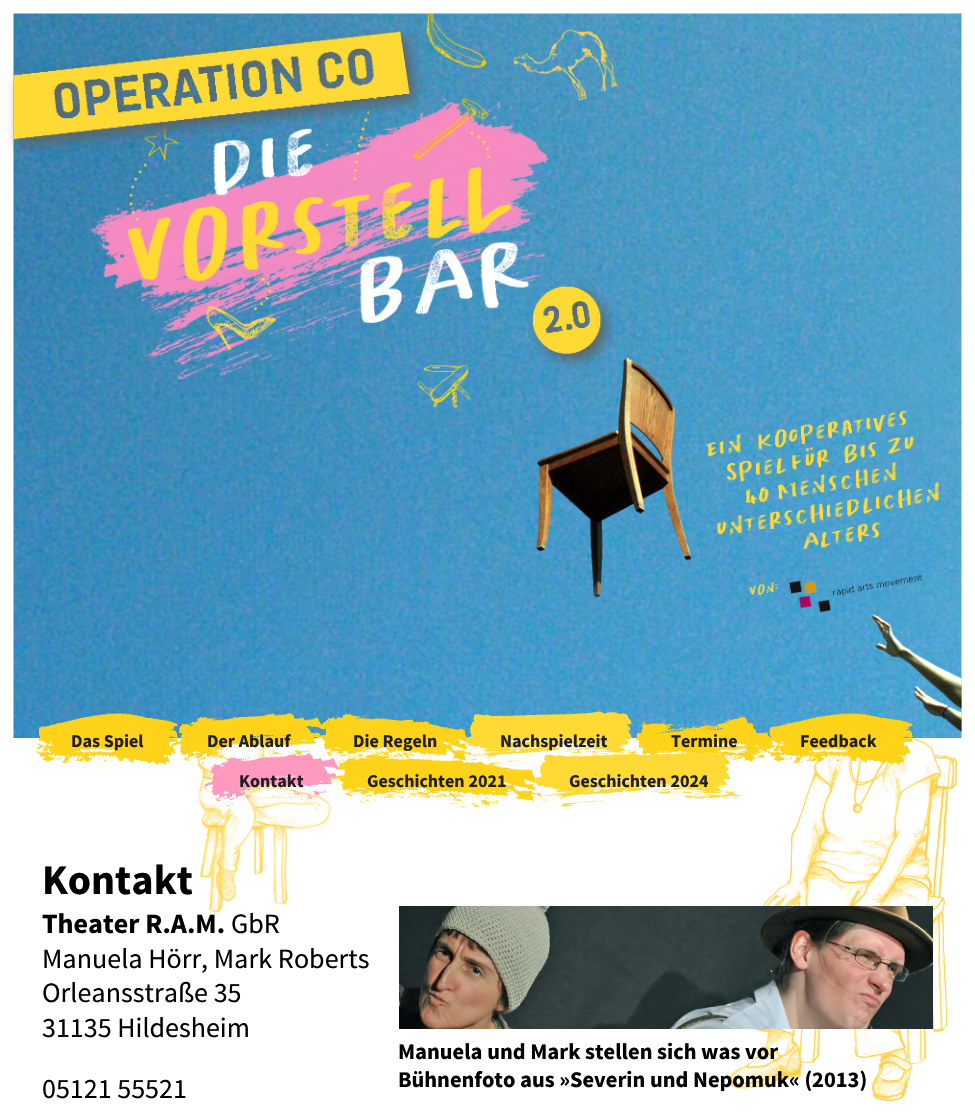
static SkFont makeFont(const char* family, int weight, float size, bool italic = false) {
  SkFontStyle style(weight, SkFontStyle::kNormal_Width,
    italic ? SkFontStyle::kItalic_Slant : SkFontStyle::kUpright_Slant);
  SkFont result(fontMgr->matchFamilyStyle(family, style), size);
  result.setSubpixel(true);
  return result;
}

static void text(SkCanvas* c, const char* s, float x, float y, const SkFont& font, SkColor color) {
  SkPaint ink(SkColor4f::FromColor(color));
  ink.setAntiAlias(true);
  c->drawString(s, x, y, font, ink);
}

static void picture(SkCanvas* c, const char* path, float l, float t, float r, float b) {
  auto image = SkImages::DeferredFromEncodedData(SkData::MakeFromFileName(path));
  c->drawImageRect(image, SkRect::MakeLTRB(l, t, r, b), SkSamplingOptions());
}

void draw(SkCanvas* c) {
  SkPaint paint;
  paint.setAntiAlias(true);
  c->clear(0xffffffff);
  picture(c, "img_01.png", 13, 13, 962, 738);
  picture(c, "img_04.png", 367, 111, 369, 114);
  picture(c, "img_05.png", 364, 118, 368, 122);
  picture(c, "img_06.png", 361, 127, 365, 131);
  picture(c, "img_02.png", 90, 13, 618, 408);
  picture(c, "img_03.png", 8, 28, 425, 154);
  picture(c, "img_07.png", 528, 282, 617, 370);
  picture(c, "img_08.png", 536, 358, 692, 598);
  picture(c, "img_09.png", 706, 410, 939, 550);
  picture(c, "img_10.png", 749, 574, 962, 733);
  picture(c, "img_11.png", 195, 738, 961, 1105);
  picture(c, "img_12.png", 35, 712, 178, 766);
  SkFont face1 = makeFont("Source Sans Pro", 700, 18);
  text(c, "Das Spiel", 71, 747, face1, 0xff202020);
  picture(c, "img_13.png", 171, 712, 326, 767);
  text(c, "Der Ablauf", 207, 747, face1, 0xff202020);
  picture(c, "img_14.png", 317, 713, 472, 763);
  text(c, "Die Regeln", 353, 747, face1, 0xff202020);
  picture(c, "img_15.png", 466, 711, 640, 767);
  text(c, "Nachspielzeit", 500, 747, face1, 0xff202020);
  picture(c, "img_16.png", 636, 714, 773, 762);
  text(c, "Termine", 671, 747, face1, 0xff202020);
  picture(c, "img_17.png", 767, 712, 913, 766);
  text(c, "Feedback", 800, 747, face1, 0xff202020);
  picture(c, "img_18.png", 204, 753, 341, 807);
  text(c, "Kontakt", 239, 787, face1, 0xff202020);
  picture(c, "img_19.png", 332, 753, 543, 808);
  text(c, "Geschichten 2021", 367, 787, face1, 0xff202020);
  picture(c, "img_20.png", 535, 751, 742, 807);
  text(c, "Geschichten 2024", 569, 787, face1, 0xff202020);
  SkFont face2 = makeFont("Source Sans Pro", 700, 42);
  text(c, "Kontakt", 42, 894, face2, 0xff000000);
  SkFont face3 = makeFont("Source Sans Pro", 700, 28);
  text(c, "Theater R.A.M.", 42, 933, face3, 0xff000000);
  SkFont face4 = makeFont("Source Sans Pro", 400, 28);
  text(c, "GbR", 231, 933, face4, 0xff000000);
  text(c, "Manuela Hörr, Mark Roberts", 42, 968, face4, 0xff000000);
  text(c, "Orleansstraße 35", 42, 1002, face4, 0xff000000);
  text(c, "31135 Hildesheim", 42, 1037, face4, 0xff000000);
  text(c, "05121 55521", 42, 1098, face4, 0xff000000);
  picture(c, "img_21.png", 399, 906, 933, 1029);
  SkFont face5 = makeFont("Source Sans Pro", 700, 22.4f);
  text(c, "Manuela und Mark stellen sich was vor", 398, 1059, face5, 0xff000000);
  text(c, "Bühnenfoto aus »Severin und Nepomuk« (2013)", 398, 1087, face5, 0xff000000);
}
